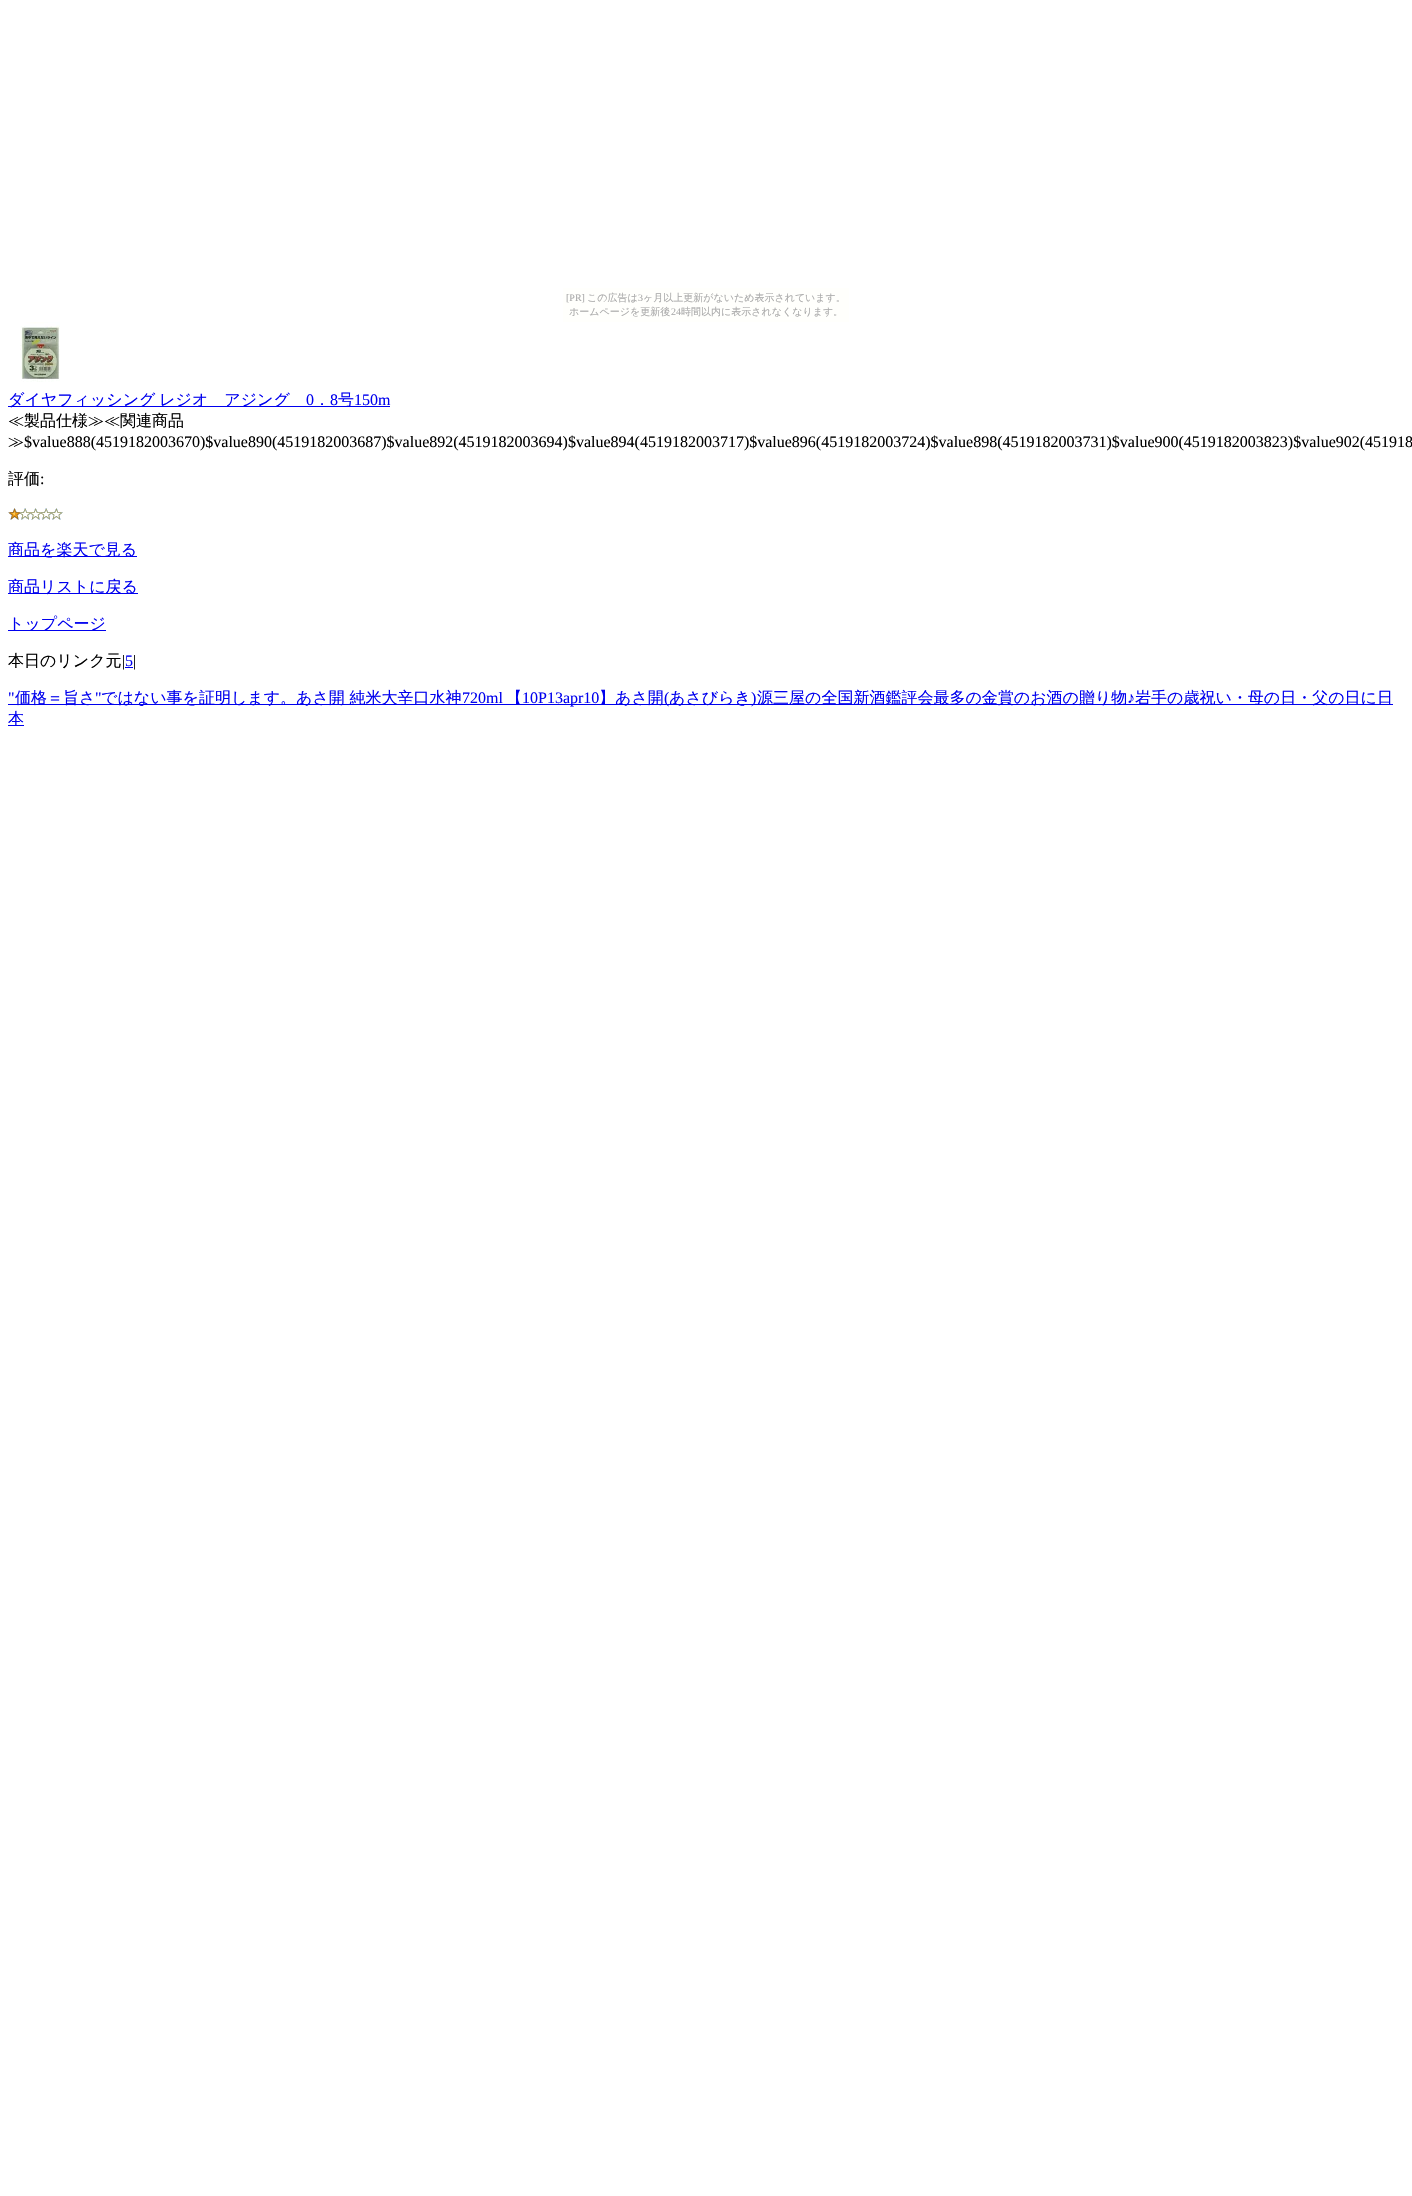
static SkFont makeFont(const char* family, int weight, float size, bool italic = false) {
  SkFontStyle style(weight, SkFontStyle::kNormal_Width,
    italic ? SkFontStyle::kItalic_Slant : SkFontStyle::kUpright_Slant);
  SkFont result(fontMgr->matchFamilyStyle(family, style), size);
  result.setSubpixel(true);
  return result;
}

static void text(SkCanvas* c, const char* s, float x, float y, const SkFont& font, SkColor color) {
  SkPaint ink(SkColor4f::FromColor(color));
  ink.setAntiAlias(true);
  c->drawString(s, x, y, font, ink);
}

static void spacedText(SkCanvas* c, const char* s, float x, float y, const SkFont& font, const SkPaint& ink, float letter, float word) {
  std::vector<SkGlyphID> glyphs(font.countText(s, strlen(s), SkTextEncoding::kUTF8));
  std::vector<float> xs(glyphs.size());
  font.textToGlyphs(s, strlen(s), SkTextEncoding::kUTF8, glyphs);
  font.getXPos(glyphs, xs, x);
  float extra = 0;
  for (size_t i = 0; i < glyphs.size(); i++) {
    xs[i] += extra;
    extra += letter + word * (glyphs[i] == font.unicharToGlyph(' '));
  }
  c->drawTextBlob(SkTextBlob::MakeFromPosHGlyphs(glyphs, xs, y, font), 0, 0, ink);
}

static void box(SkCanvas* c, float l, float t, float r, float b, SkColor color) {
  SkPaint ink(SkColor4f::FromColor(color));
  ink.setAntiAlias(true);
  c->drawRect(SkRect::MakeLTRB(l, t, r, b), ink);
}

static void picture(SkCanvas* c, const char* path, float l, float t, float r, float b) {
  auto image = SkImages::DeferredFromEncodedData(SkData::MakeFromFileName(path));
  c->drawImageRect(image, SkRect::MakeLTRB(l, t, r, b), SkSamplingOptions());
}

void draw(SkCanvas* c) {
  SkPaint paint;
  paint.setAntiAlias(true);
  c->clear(0xffffffff);
  box(c, 563, 288, 849, 322, 0xfffffffc);
  SkFont face1 = makeFont("Liberation Serif", 400, 10);
  text(c, "[PR]", 566, 301, face1, 0xffaaaaaa);
  SkFont face2 = makeFont("WenQuanYi Zen Hei", 500, 10);
  text(c, "この広告は", 587, 301, face2, 0xffaaaaaa);
  text(c, "3", 638, 301, face1, 0xffaaaaaa);
  text(c, "ヶ月以上更新がないため表示されています。", 643, 301, face2, 0xffaaaaaa);
  text(c, "ホームページを更新後", 569, 315, face2, 0xffaaaaaa);
  text(c, "24", 671, 315, face1, 0xffaaaaaa);
  text(c, "時間以内に表示されなくなります。", 681, 315, face2, 0xffaaaaaa);
  picture(c, "img_01.png", 20, 322, 60, 382);
  box(c, 8, 406, 390, 407, 0xff0000ee);
  SkFont face3 = makeFont("WenQuanYi Zen Hei", 500, 16);
  paint.setColor(0xff0000ee);
  spacedText(c, "ダイヤフィッシング レジオ　アジング", 8, 405, face3, paint, 0, -1);
  SkFont face4 = makeFont("Liberation Serif", 400, 16);
  text(c, "0", 306, 405, face4, 0xff0000ee);
  text(c, "．", 314, 405, face3, 0xff0000ee);
  text(c, "8", 330, 405, face4, 0xff0000ee);
  text(c, "号", 338, 405, face3, 0xff0000ee);
  text(c, "150m", 354, 405, face4, 0xff0000ee);
  text(c, "≪製品仕様≫≪関連商品", 8, 426, face3, 0xff000000);
  text(c, "≫", 8, 447, face3, 0xff000000);
  text(c, "$value888(4519182003670)$value890(4519182003687)$value892(4519182003694)$value894(4519182003717)$value896(4519182003724)$value898(4519182003731)$value900(4519182003823)$value902(451918", 24, 447, face4, 0xff000000);
  text(c, "評価", 8, 484, face3, 0xff000000);
  text(c, ":", 40, 484, face4, 0xff000000);
  picture(c, "img_02.png", 8, 508, 63, 520);
  box(c, 8, 556, 137, 557, 0xff0000ee);
  text(c, "商品を楽天で見る", 8, 555, face3, 0xff0000ee);
  box(c, 8, 593, 138, 594, 0xff0000ee);
  text(c, "商品リストに戻る", 8, 592, face3, 0xff0000ee);
  box(c, 8, 630, 106, 631, 0xff0000ee);
  text(c, "トップページ", 8, 629, face3, 0xff0000ee);
  text(c, "本日のリンク元", 8, 666, face3, 0xff000000);
  text(c, "|", 122, 666, face4, 0xff000000);
  text(c, "5", 125, 666, face4, 0xff0000ee);
  box(c, 125, 667, 133, 668, 0xff0000ee);
  text(c, "|", 133, 666, face4, 0xff000000);
  text(c, "\"", 8, 703, face4, 0xff0000ee);
  box(c, 8, 704, 1393, 705, 0xff0000ee);
  text(c, "価格＝旨さ", 15, 703, face3, 0xff0000ee);
  text(c, "\"", 95, 703, face4, 0xff0000ee);
  text(c, "ではない事を証明します。あさ開 純米大辛口水神", 101, 703, face3, 0xff0000ee);
  text(c, "720ml", 462, 703, face4, 0xff0000ee);
  text(c, "【", 506, 703, face3, 0xff0000ee);
  text(c, "10P13apr10", 522, 703, face4, 0xff0000ee);
  text(c, "】あさ開", 599, 703, face3, 0xff0000ee);
  text(c, "(", 664, 703, face4, 0xff0000ee);
  text(c, "あさびらき", 669, 703, face3, 0xff0000ee);
  text(c, ")", 751, 703, face4, 0xff0000ee);
  text(c, "源三屋の全国新酒鑑評会最多の金賞のお酒の贈り物", 757, 703, face3, 0xff0000ee);
  text(c, "♪", 1127, 703, face4, 0xff0000ee);
  text(c, "岩手の歳祝い・母の日・父の日に日", 1135, 703, face3, 0xff0000ee);
  box(c, 8, 725, 24, 726, 0xff0000ee);
  text(c, "本", 8, 724, face3, 0xff0000ee);
}
